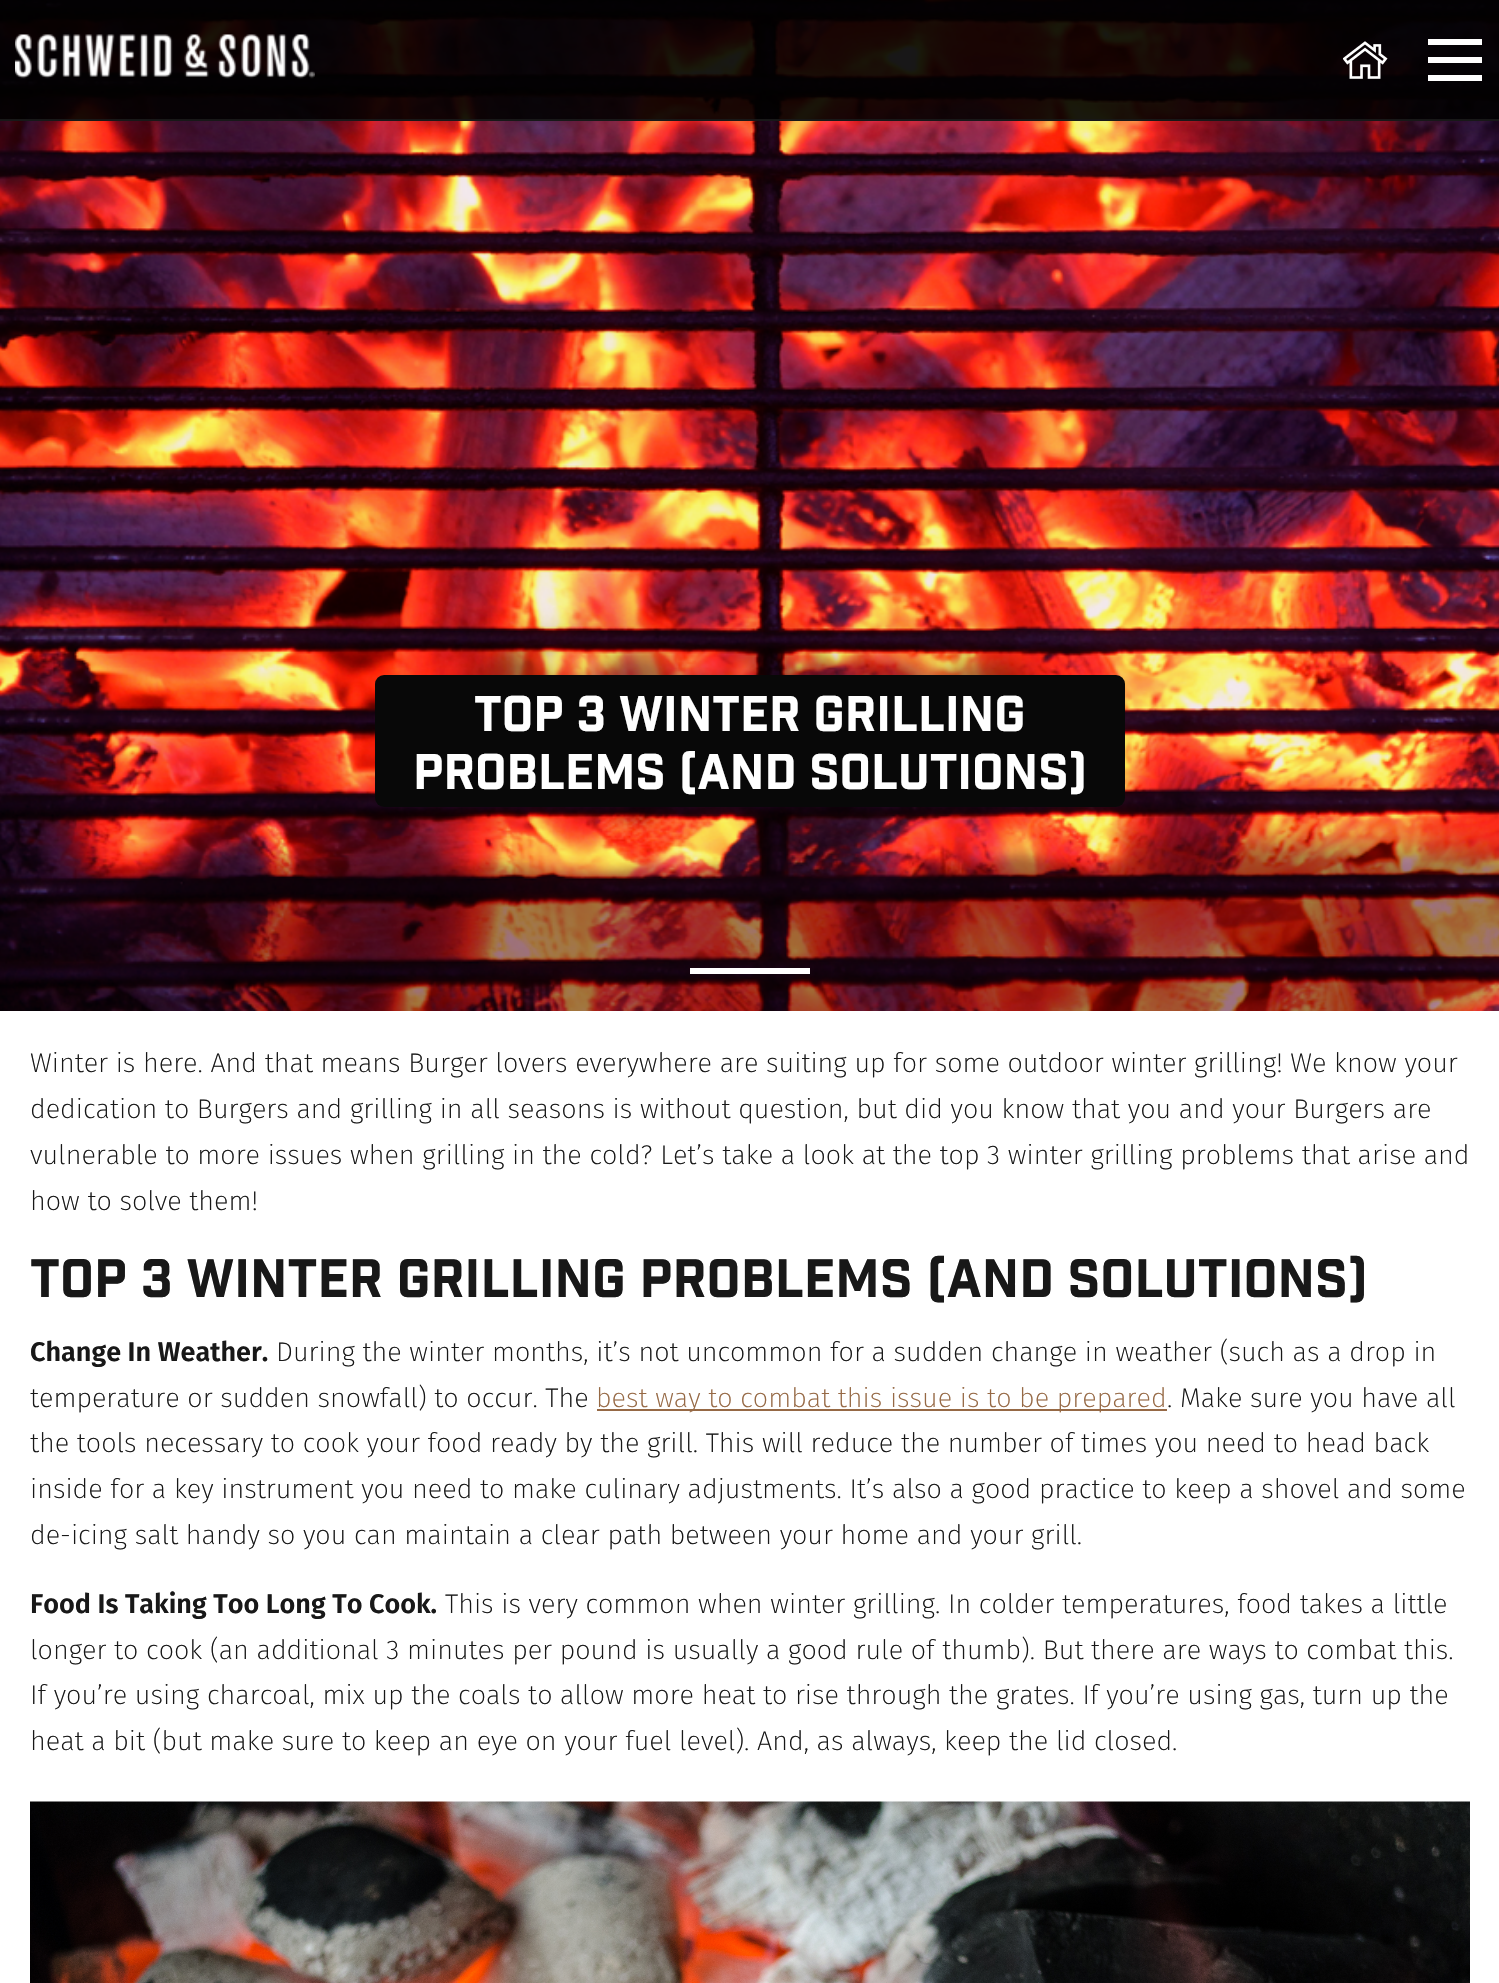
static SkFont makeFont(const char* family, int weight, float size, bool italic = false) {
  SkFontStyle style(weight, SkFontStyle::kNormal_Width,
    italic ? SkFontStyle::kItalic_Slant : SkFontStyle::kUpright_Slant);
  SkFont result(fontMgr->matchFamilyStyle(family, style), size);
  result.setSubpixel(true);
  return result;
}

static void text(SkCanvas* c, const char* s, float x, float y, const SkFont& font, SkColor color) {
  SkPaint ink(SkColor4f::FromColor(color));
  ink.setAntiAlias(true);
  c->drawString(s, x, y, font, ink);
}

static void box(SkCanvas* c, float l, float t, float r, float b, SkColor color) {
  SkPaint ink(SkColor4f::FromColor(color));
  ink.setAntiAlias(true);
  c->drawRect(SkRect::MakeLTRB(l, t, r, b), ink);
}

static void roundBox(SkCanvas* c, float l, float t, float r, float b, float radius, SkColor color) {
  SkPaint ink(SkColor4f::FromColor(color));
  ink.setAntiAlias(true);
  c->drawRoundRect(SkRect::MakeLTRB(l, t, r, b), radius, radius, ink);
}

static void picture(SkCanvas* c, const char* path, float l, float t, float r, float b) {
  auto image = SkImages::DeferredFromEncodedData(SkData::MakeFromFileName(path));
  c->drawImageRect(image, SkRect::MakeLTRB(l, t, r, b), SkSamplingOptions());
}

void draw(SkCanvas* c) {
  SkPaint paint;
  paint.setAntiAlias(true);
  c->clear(0xffffffff);
  picture(c, "img_03.png", 0, 0, 1499, 1011);
  box(c, 0, 0, 1499, 119, 0xe6000000);
  box(c, 0, 119, 1499, 121, 0xff181818);
  picture(c, "img_01.png", 15, 34, 315, 79);
  picture(c, "img_02.png", 1343, 41, 1388, 79);
  box(c, 1428, 39, 1482, 45, 0xffffffff);
  box(c, 1428, 57, 1482, 63, 0xffffffff);
  box(c, 1428, 75, 1482, 81, 0xffffffff);
  roundBox(c, 375, 675, 1125, 807, 9, 0xff080808);
  SkFont face1 = makeFont("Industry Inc", 400, 48.6f);
  text(c, "TOP 3 WINTER GRILLING", 474, 731, face1, 0xffffffff);
  text(c, "PROBLEMS (AND SOLUTIONS)", 413, 789, face1, 0xffffffff);
  box(c, 690, 968, 810, 974, 0xffffffff);
  SkFont face2 = makeFont("Fira Sans", 200, 27);
  text(c, "Winter is here. And that means Burger lovers everywhere are suiting up for some outdoor winter grilling! We know your", 30, 1072, face2, 0xff181818);
  text(c, "dedication to Burgers and grilling in all seasons is without question, but did you know that you and your Burgers are", 30, 1118, face2, 0xff181818);
  text(c, "vulnerable to more issues when grilling in the cold? Let’s take a look at the top 3 winter grilling problems that arise and", 30, 1164, face2, 0xff181818);
  text(c, "how to solve them!", 30, 1210, face2, 0xff181818);
  SkFont face3 = makeFont("Industry Inc", 400, 52.5f);
  text(c, "TOP 3 WINTER GRILLING PROBLEMS (AND SOLUTIONS)", 30, 1297, face3, 0xff181818);
  SkFont face4 = makeFont("Fira Sans", 600, 27);
  text(c, "Change In Weather.", 30, 1361, face4, 0xff181818);
  text(c, "During the winter months, it’s not uncommon for a sudden change in weather (such as a drop in", 276, 1361, face2, 0xff181818);
  text(c, "temperature or sudden snowfall) to occur. The", 30, 1407, face2, 0xff181818);
  box(c, 597, 1409, 1167, 1411, 0xff966945);
  text(c, "best way to combat this issue is to be prepared", 596, 1407, face2, 0xff966945);
  text(c, ". Make sure you have all", 1167, 1407, face2, 0xff181818);
  text(c, "the tools necessary to cook your food ready by the grill. This will reduce the number of times you need to head back", 30, 1452, face2, 0xff181818);
  text(c, "inside for a key instrument you need to make culinary adjustments. It’s also a good practice to keep a shovel and some", 30, 1498, face2, 0xff181818);
  text(c, "de-icing salt handy so you can maintain a clear path between your home and your grill.", 30, 1544, face2, 0xff181818);
  text(c, "Food Is Taking Too Long To Cook.", 30, 1613, face4, 0xff181818);
  text(c, "This is very common when winter grilling. In colder temperatures, food takes a little", 445, 1613, face2, 0xff181818);
  text(c, "longer to cook (an additional 3 minutes per pound is usually a good rule of thumb). But there are ways to combat this.", 30, 1659, face2, 0xff181818);
  text(c, "If you’re using charcoal, mix up the coals to allow more heat to rise through the grates. If you’re using gas, turn up the", 30, 1704, face2, 0xff181818);
  text(c, "heat a bit (but make sure to keep an eye on your fuel level). And, as always, keep the lid closed.", 30, 1750, face2, 0xff181818);
  picture(c, "img_04.png", 30, 1801, 1470, 1983);
}
